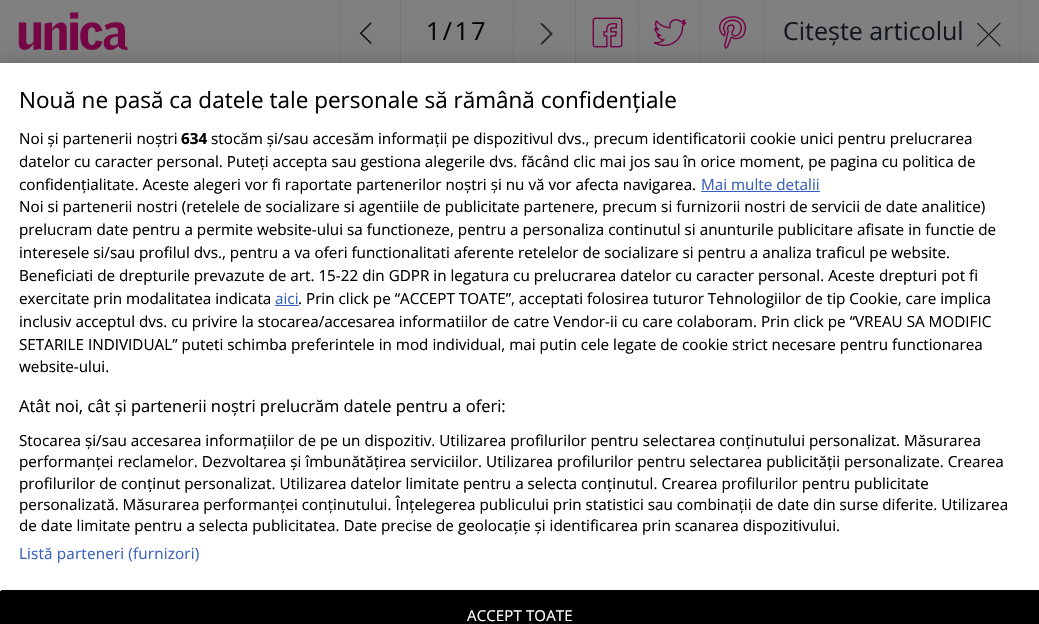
static SkFont makeFont(const char* family, int weight, float size, bool italic = false) {
  SkFontStyle style(weight, SkFontStyle::kNormal_Width,
    italic ? SkFontStyle::kItalic_Slant : SkFontStyle::kUpright_Slant);
  SkFont result(fontMgr->matchFamilyStyle(family, style), size);
  result.setSubpixel(true);
  return result;
}

static void text(SkCanvas* c, const char* s, float x, float y, const SkFont& font, SkColor color) {
  SkPaint ink(SkColor4f::FromColor(color));
  ink.setAntiAlias(true);
  c->drawString(s, x, y, font, ink);
}

static void spacedText(SkCanvas* c, const char* s, float x, float y, const SkFont& font, const SkPaint& ink, float letter, float word) {
  std::vector<SkGlyphID> glyphs(font.countText(s, strlen(s), SkTextEncoding::kUTF8));
  std::vector<float> xs(glyphs.size());
  font.textToGlyphs(s, strlen(s), SkTextEncoding::kUTF8, glyphs);
  font.getXPos(glyphs, xs, x);
  float extra = 0;
  for (size_t i = 0; i < glyphs.size(); i++) {
    xs[i] += extra;
    extra += letter + word * (glyphs[i] == font.unicharToGlyph(' '));
  }
  c->drawTextBlob(SkTextBlob::MakeFromPosHGlyphs(glyphs, xs, y, font), 0, 0, ink);
}

static void box(SkCanvas* c, float l, float t, float r, float b, SkColor color) {
  SkPaint ink(SkColor4f::FromColor(color));
  ink.setAntiAlias(true);
  c->drawRect(SkRect::MakeLTRB(l, t, r, b), ink);
}

static void picture(SkCanvas* c, const char* path, float l, float t, float r, float b) {
  auto image = SkImages::DeferredFromEncodedData(SkData::MakeFromFileName(path));
  c->drawImageRect(image, SkRect::MakeLTRB(l, t, r, b), SkSamplingOptions());
}

void draw(SkCanvas* c) {
  SkPaint paint;
  paint.setAntiAlias(true);
  c->clear(0xff808080);
  picture(c, "img_01.png", 18, 12, 128, 50);
  box(c, 400, 0, 401, 63, 0xff777777);
  box(c, 339, 0, 340, 63, 0xff777777);
  picture(c, "img_02.png", 359, 22, 372, 44);
  SkFont face1 = makeFont("Open Sans", 400, 25);
  paint.setColor(0xff000000);
  spacedText(c, "1/17", 426, 40, face1, paint, 2.5f, 0);
  box(c, 513, 0, 514, 63, 0xff777777);
  picture(c, "img_03.png", 540, 22, 553, 45);
  box(c, 575, 0, 576, 63, 0xff777777);
  picture(c, "img_04.png", 592, 17, 623, 48);
  box(c, 638, 0, 639, 63, 0xff777777);
  picture(c, "img_05.png", 654, 18, 686, 47);
  box(c, 700, 0, 701, 63, 0xff777777);
  picture(c, "img_06.png", 718, 16, 747, 49);
  box(c, 1020, 0, 1021, 63, 0xff777777);
  box(c, 763, 0, 764, 63, 0xff777777);
  text(c, "Citește articolul", 783, 40, face1, 0xff13161d);
  picture(c, "img_07.png", 977, 23, 1001, 47);
  paint.setColor(0x33000000);
  paint.setMaskFilter(SkMaskFilter::MakeBlur(kNormal_SkBlurStyle, 11));
  c->drawRect(SkRect::MakeLTRB(0, 63, 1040, 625), paint);
  paint.setMaskFilter(nullptr);
  box(c, 0, 63, 1039, 593, 0xffffffff);
  SkFont face2 = makeFont("Open Sans", 400, 22.5f);
  text(c, "Nouă ne pasă ca datele tale personale să rămână confidențiale", 19, 108, face2, 0xff000000);
  SkFont face3 = makeFont("Open Sans", 400, 15.25f);
  text(c, "Noi și partenerii noștri", 19, 144, face3, 0xff000000);
  SkFont face4 = makeFont("Open Sans", 700, 15.25f);
  text(c, "634", 181, 144, face4, 0xff000000);
  text(c, "stocăm și/sau accesăm informații pe dispozitivul dvs., precum identificatorii cookie unici pentru prelucrarea", 211, 144, face3, 0xff000000);
  text(c, "datelor cu caracter personal. Puteți accepta sau gestiona alegerile dvs. făcând clic mai jos sau în orice moment, pe pagina cu politica de", 19, 167, face3, 0xff000000);
  text(c, "confidențialitate. Aceste alegeri vor fi raportate partenerilor noștri și nu vă vor afecta navigarea.", 19, 190, face3, 0xff000000);
  text(c, "Mai multe detalii", 701, 190, face3, 0xff3860be);
  box(c, 701, 191, 820, 192, 0xff3860be);
  text(c, "Noi si partenerii nostri (retelele de socializare si agentiile de publicitate partenere, precum si furnizorii nostri de servicii de date analitice)", 19, 212, face3, 0xff000000);
  text(c, "prelucram date pentru a permite website-ului sa functioneze, pentru a personaliza continutul si anunturile publicitare afisate in functie de", 19, 235, face3, 0xff000000);
  text(c, "interesele si/sau profilul dvs., pentru a va oferi functionalitati aferente retelelor de socializare si pentru a analiza traficul pe website.", 19, 258, face3, 0xff000000);
  text(c, "Beneficiati de drepturile prevazute de art. 15-22 din GDPR in legatura cu prelucrarea datelor cu caracter personal. Aceste drepturi pot fi", 19, 281, face3, 0xff000000);
  text(c, "exercitate prin modalitatea indicata", 19, 304, face3, 0xff000000);
  text(c, "aici", 275, 304, face3, 0xff3860be);
  box(c, 275, 305, 299, 306, 0xff3860be);
  text(c, ". Prin click pe “ACCEPT TOATE”, acceptati folosirea tuturor Tehnologiilor de tip Cookie, care implica", 298, 304, face3, 0xff000000);
  text(c, "inclusiv acceptul dvs. cu privire la stocarea/accesarea informatiilor de catre Vendor-ii cu care colaboram. Prin click pe “VREAU SA MODIFIC", 19, 327, face3, 0xff000000);
  text(c, "SETARILE INDIVIDUAL” puteti schimba preferintele in mod individual, mai putin cele legate de cookie strict necesare pentru functionarea", 19, 350, face3, 0xff000000);
  text(c, "website-ului.", 19, 372, face3, 0xff000000);
  SkFont face5 = makeFont("Open Sans", 400, 16.5f);
  text(c, "Atât noi, cât și partenerii noștri prelucrăm datele pentru a oferi:", 19, 412, face5, 0xff000000);
  text(c, "Stocarea și/sau accesarea informațiilor de pe un dispozitiv. Utilizarea profilurilor pentru selectarea conținutului personalizat. Măsurarea", 19, 446, face3, 0xff000000);
  text(c, "performanței reclamelor. Dezvoltarea și îmbunătățirea serviciilor. Utilizarea profilurilor pentru selectarea publicității personalizate. Crearea", 19, 467, face3, 0xff000000);
  text(c, "profilurilor de conținut personalizat. Utilizarea datelor limitate pentru a selecta conținutul. Crearea profilurilor pentru publicitate", 19, 489, face3, 0xff000000);
  text(c, "personalizată. Măsurarea performanței conținutului. Înțelegerea publicului prin statistici sau combinații de date din surse diferite. Utilizarea", 19, 510, face3, 0xff000000);
  text(c, "de date limitate pentru a selecta publicitatea. Date precise de geolocație și identificarea prin scanarea dispozitivului.", 19, 531, face3, 0xff000000);
  paint.setColor(0xff3860be);
  spacedText(c, "Listă parteneri (furnizori)", 19, 559, face3, paint, 0.15f, 0);
  paint.setColor(0xff000000);
  c->drawPath(SkPathBuilder().moveTo(2.5f, 590).lineTo(1037.5f, 590).cubicTo(1039, 590, 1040, 591, 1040, 592.5f).lineTo(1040, 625).lineTo(0, 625).lineTo(0, 592.5f).cubicTo(0, 591, 1, 590, 2.5f, 590).close().detach(), paint);
  paint.setStyle(SkPaint::kStroke_Style);
  paint.setStrokeWidth(1);
  c->drawRoundRect(SkRect::MakeLTRB(0.5f, 590.5f, 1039.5f, 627.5f), 2, 2, paint);
  SkFont face6 = makeFont("Open Sans", 400, 15);
  paint.setStyle(SkPaint::kFill_Style);
  paint.setColor(0xffffffff);
  spacedText(c, "ACCEPT TOATE", 467, 621, face6, paint, 0.15f, 0);
}
